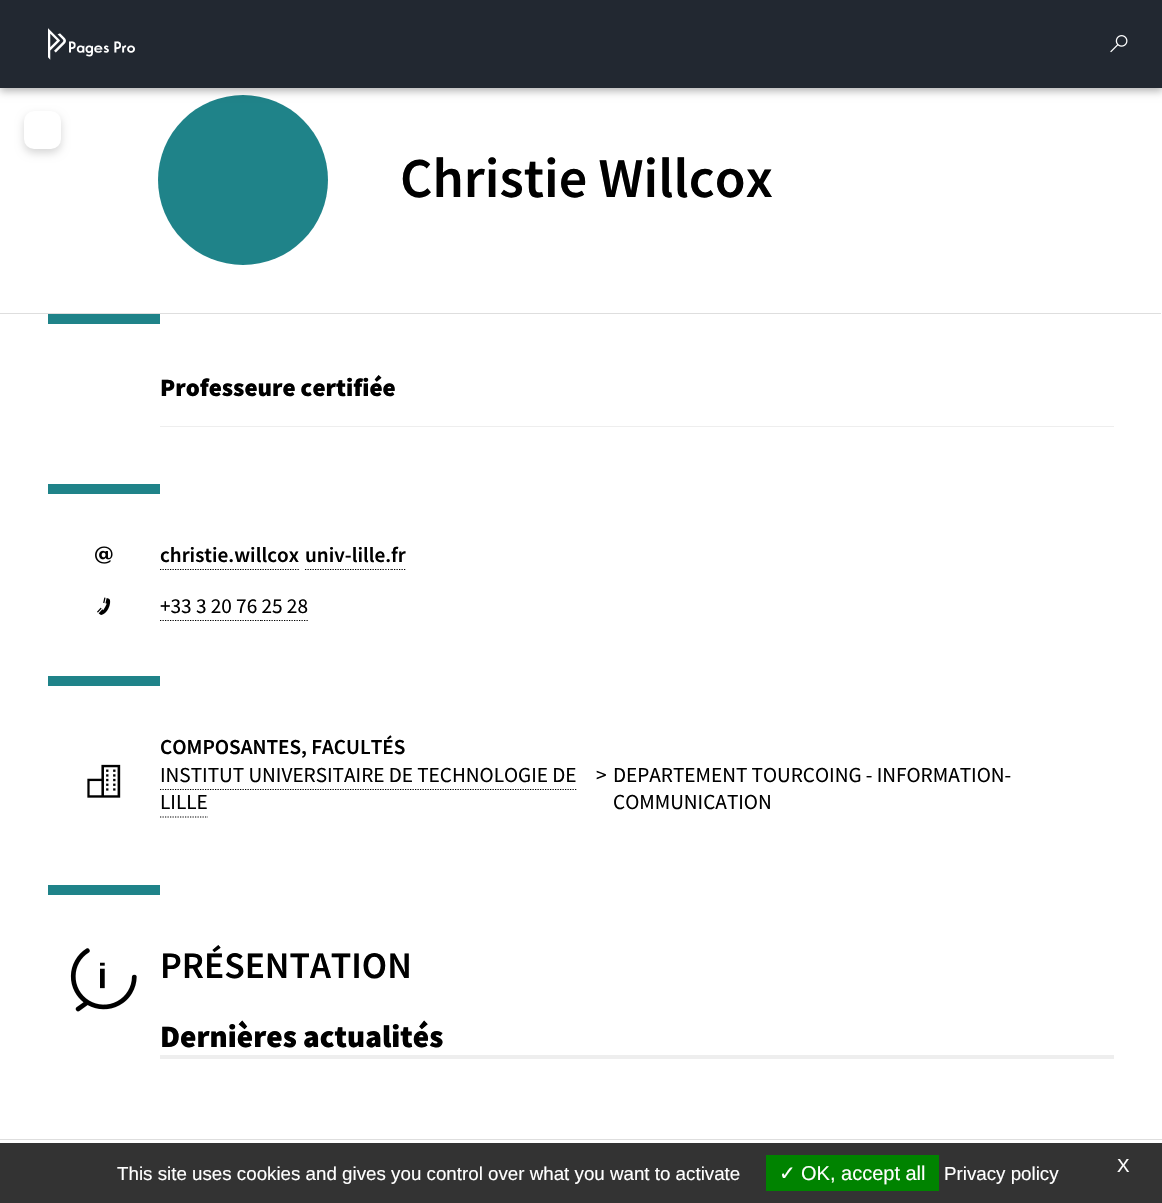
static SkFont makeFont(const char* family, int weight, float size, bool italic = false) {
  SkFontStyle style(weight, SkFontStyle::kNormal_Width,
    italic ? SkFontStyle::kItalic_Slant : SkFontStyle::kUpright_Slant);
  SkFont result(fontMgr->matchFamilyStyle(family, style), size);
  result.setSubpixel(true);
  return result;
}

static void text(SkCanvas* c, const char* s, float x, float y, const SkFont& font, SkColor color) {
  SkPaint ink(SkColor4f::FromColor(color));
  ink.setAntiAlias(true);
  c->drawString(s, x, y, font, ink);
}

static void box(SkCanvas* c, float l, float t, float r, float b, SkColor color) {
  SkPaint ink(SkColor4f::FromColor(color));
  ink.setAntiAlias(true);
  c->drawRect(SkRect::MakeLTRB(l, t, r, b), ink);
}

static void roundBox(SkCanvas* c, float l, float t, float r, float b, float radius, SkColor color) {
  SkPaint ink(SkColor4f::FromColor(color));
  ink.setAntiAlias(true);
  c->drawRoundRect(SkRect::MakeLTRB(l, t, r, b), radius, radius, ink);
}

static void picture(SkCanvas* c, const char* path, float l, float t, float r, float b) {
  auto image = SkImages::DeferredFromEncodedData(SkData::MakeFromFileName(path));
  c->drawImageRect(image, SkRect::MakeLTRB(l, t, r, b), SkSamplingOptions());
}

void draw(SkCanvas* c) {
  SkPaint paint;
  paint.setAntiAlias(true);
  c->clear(0xffffffff);
  paint.setColor(0xff1f8389);
  c->drawCircle(243, 180, 85, paint);
  paint.setColor(0x4d000000);
  paint.setMaskFilter(SkMaskFilter::MakeBlur(kNormal_SkBlurStyle, 4));
  c->drawRect(SkRect::MakeLTRB(0, 4, 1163, 91), paint);
  paint.setMaskFilter(nullptr);
  box(c, 0, 0, 1162, 88, 0xff222831);
  picture(c, "img_01.png", 48, 28, 135, 60);
  picture(c, "img_02.png", 1110, 35, 1128, 53);
  paint.setColor(0x29000000);
  paint.setMaskFilter(SkMaskFilter::MakeBlur(kNormal_SkBlurStyle, 4));
  c->drawRoundRect(SkRect::MakeLTRB(24, 115, 61, 153), 10, 10, paint);
  paint.setMaskFilter(nullptr);
  roundBox(c, 24, 111, 61, 149, 10, 0xffffffff);
  box(c, 0, 313, 1161, 314, 0xffdedede);
  SkFont face1 = makeFont("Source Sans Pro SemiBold", 600, 56.25f);
  text(c, "Christie Willcox", 400, 197, face1, 0xff000000);
  box(c, 48, 314, 160, 324, 0xff1f8389);
  SkFont face2 = makeFont("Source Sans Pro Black", 900, 25);
  text(c, "Professeure certifiée", 160, 396, face2, 0xff000000);
  box(c, 160, 426, 1114, 427, 0xffeeeeee);
  box(c, 48, 484, 160, 494, 0xff1f8389);
  picture(c, "img_03.png", 95, 546, 113, 564);
  SkFont face3 = makeFont("Source Sans Pro SemiBold", 600, 21.25f);
  text(c, "christie.willcox", 160, 562, face3, 0xff000000);
  paint.setStyle(SkPaint::kStroke_Style);
  paint.setStrokeWidth(1.2f);
  paint.setColor(0xff000000);
  paint.setPathEffect(SkDashPathEffect::Make({{1.25f, 1.25f}}, 0));
  c->drawPath(SkPathBuilder().moveTo(160, 569.5f).lineTo(299, 569.5f).detach(), paint);
  paint.setPathEffect(nullptr);
  text(c, "univ-lille.fr", 305, 562, face3, 0xff000000);
  paint.setPathEffect(SkDashPathEffect::Make({{1.25f, 1.25f}}, 0));
  c->drawPath(SkPathBuilder().moveTo(305, 569.5f).lineTo(385.5f, 569.5f).detach(), paint);
  paint.setPathEffect(nullptr);
  c->drawPath(SkPathBuilder().moveTo(385.5f, 569.5f).lineTo(386.5f, 569.5f).moveTo(388, 569.5f).lineTo(389, 569.5f).moveTo(390.5f, 569.5f).lineTo(391.5f, 569.5f).detach(), paint);
  paint.setPathEffect(SkDashPathEffect::Make({{1.25f, 1.25f}}, 0));
  c->drawPath(SkPathBuilder().moveTo(391.5f, 569.5f).lineTo(406, 569.5f).detach(), paint);
  paint.setPathEffect(nullptr);
  picture(c, "img_04.png", 97, 597, 111, 615);
  SkFont face4 = makeFont("Source Sans Pro", 400, 21.25f);
  text(c, "+33 3 20 76 25 28", 160, 613, face4, 0xff000000);
  paint.setPathEffect(SkDashPathEffect::Make({{1.25f, 1.25f}}, 0));
  c->drawPath(SkPathBuilder().moveTo(160, 620.5f).lineTo(261.5f, 620.5f).detach(), paint);
  paint.setPathEffect(nullptr);
  paint.setPathEffect(SkDashPathEffect::Make({{1.25f, 1.25f}}, 0));
  c->drawPath(SkPathBuilder().moveTo(261.5f, 620.5f).lineTo(308, 620.5f).detach(), paint);
  paint.setPathEffect(nullptr);
  box(c, 48, 676, 160, 686, 0xff1f8389);
  picture(c, "img_05.png", 87, 764, 121, 798);
  text(c, "COMPOSANTES, FACULTÉS", 160, 754, face3, 0xff000000);
  text(c, "INSTITUT UNIVERSITAIRE DE TECHNOLOGIE DE", 160, 782, face4, 0xff000000);
  text(c, "LILLE", 160, 809, face4, 0xff000000);
  paint.setPathEffect(SkDashPathEffect::Make({{1.25f, 1.25f}}, 0));
  c->drawPath(SkPathBuilder().moveTo(160, 789.5f).lineTo(576.5f, 789.5f).detach(), paint);
  paint.setPathEffect(nullptr);
  paint.setPathEffect(SkDashPathEffect::Make({{1.25f, 1.25f}}, 0));
  c->drawPath(SkPathBuilder().moveTo(160, 817).lineTo(208, 817).detach(), paint);
  paint.setPathEffect(nullptr);
  text(c, ">", 596, 782, face4, 0xff000000);
  text(c, "DEPARTEMENT TOURCOING - INFORMATION-", 613, 782, face4, 0xff000000);
  text(c, "COMMUNICATION", 613, 809, face4, 0xff000000);
  box(c, 48, 885, 160, 895, 0xff1f8389);
  picture(c, "img_06.png", 70, 948, 137, 1012);
  SkFont face5 = makeFont("Source Sans Pro SemiBold", 600, 37.5f);
  text(c, "PRÉSENTATION", 160, 978, face5, 0xff000000);
  box(c, 160, 1055, 1114, 1059, 0xffeeeeee);
  SkFont face6 = makeFont("Source Sans Pro Black", 900, 31.25f);
  text(c, "Dernières actualités", 160, 1047, face6, 0xff000000);
  box(c, 0, 1139, 1162, 1140, 0xffdedede);
  box(c, 0, 1143, 1162, 1203, 0xff333333);
  SkFont face7 = makeFont("Liberation Sans", 400, 18.75f);
  text(c, "This site uses cookies and gives you control over what you want to activate", 117, 1180, face7, 0xffffffff);
  box(c, 766, 1155, 939, 1191, 0xff008300);
  SkFont face8 = makeFont("DejaVu Sans", 400, 20);
  text(c, "✓", 779, 1180, face8, 0xffffffff);
  SkFont face9 = makeFont("Liberation Sans", 400, 20);
  text(c, "OK, accept all", 801, 1180, face9, 0xffffffff);
  text(c, "Privacy policy", 944, 1180, face7, 0xffffffff);
  text(c, "X", 1117, 1172, face7, 0xffffffff);
}
